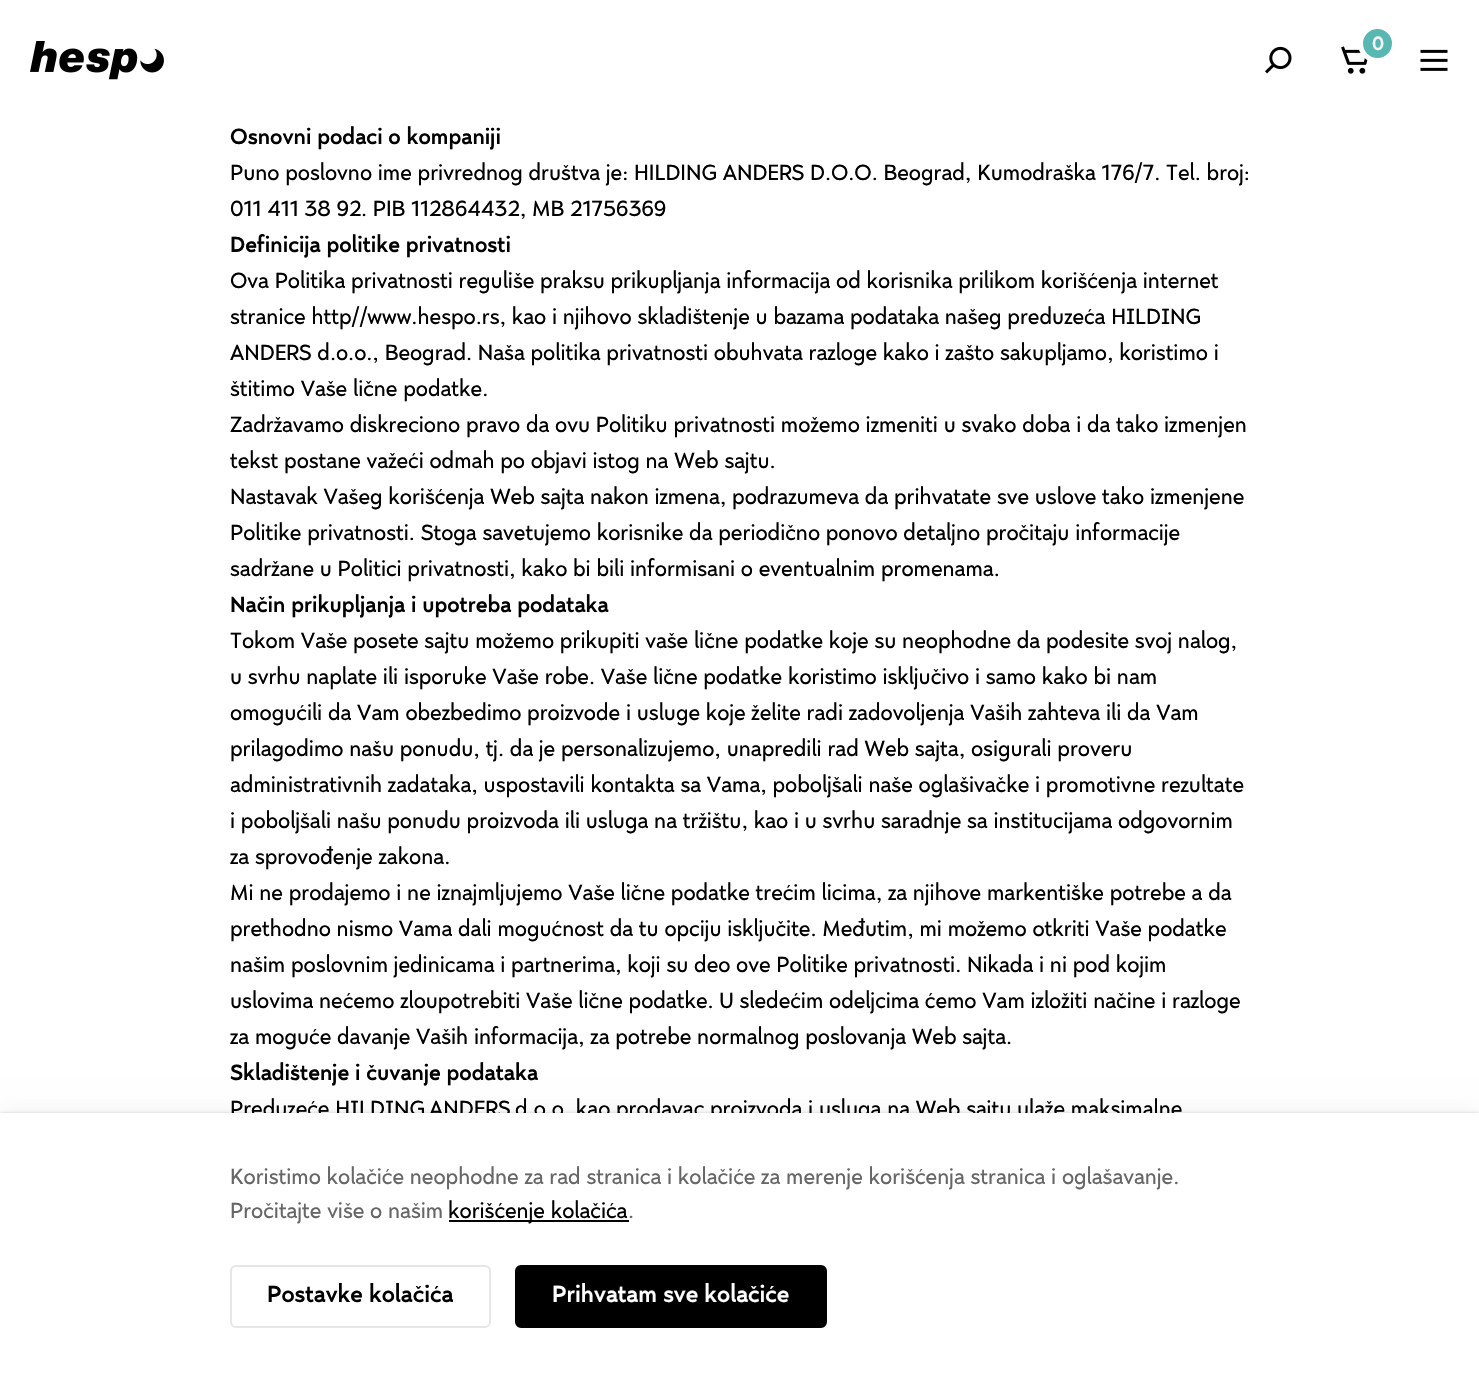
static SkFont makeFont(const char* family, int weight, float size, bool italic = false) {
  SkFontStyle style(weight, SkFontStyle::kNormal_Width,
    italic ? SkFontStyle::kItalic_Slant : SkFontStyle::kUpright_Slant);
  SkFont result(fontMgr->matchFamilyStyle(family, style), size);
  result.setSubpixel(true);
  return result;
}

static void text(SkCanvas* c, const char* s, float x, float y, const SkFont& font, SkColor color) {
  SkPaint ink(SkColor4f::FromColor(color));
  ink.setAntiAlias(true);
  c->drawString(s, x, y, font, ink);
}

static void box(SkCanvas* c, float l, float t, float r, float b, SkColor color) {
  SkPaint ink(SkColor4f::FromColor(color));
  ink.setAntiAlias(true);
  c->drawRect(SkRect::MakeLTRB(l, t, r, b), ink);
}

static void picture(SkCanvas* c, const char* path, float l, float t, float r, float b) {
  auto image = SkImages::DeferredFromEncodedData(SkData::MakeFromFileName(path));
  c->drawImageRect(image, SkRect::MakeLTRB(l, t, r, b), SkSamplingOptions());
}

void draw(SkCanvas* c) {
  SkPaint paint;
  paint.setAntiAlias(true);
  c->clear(0xffffffff);
  picture(c, "img_01.png", 30, 41, 164, 80);
  picture(c, "img_02.png", 1341, 46, 1368, 74);
  paint.setColor(0xff59b7b1);
  c->drawCircle(1377.5f, 43.5f, 17, paint);
  paint.setStyle(SkPaint::kStroke_Style);
  paint.setStrokeWidth(5);
  paint.setColor(0xffffffff);
  c->drawCircle(1377.5f, 43.5f, 17, paint);
  SkFont face1 = makeFont("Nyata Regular", 500, 21);
  text(c, "0", 1372, 50, face1, 0xfff4f4f4);
  picture(c, "img_03.png", 1265, 46, 1292, 74);
  picture(c, "img_04.png", 1420, 49, 1448, 71);
  SkFont face2 = makeFont("Nyata Regular", 500, 24);
  text(c, "Osnovni podaci o kompaniji", 230, 144, face2, 0xff000000);
  SkFont face3 = makeFont("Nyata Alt", 400, 24);
  text(c, "Puno poslovno ime privrednog društva je: HILDING ANDERS D.O.O. Beograd, Kumodraška 176/7. Tel. broj:", 230, 180, face3, 0xff000000);
  SkFont face4 = makeFont("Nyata", 400, 24);
  text(c, "011 411 38 92", 230, 216, face4, 0xff000000);
  text(c, ". PIB 112864432, MB 21756369", 361, 216, face3, 0xff000000);
  text(c, "Definicija politike privatnosti", 230, 252, face2, 0xff000000);
  text(c, "Ova Politika privatnosti reguliše praksu prikupljanja informacija od korisnika prilikom korišćenja internet", 230, 288, face4, 0xff000000);
  text(c, "stranice http//www.hespo.rs, kao i njihovo skladištenje u bazama podataka našeg preduzeća HILDING", 230, 324, face4, 0xff000000);
  text(c, "ANDERS d.o.o., Beograd. Naša politika privatnosti obuhvata razloge kako i zašto sakupljamo, koristimo i", 230, 360, face4, 0xff000000);
  text(c, "štitimo Vaše lične podatke.", 230, 396, face4, 0xff000000);
  text(c, "Zadržavamo diskreciono pravo da ovu Politiku privatnosti možemo izmeniti u svako doba i da tako izmenjen", 230, 432, face4, 0xff000000);
  text(c, "tekst postane važeći odmah po objavi istog na Web sajtu.", 230, 468, face4, 0xff000000);
  text(c, "Nastavak Vašeg korišćenja Web sajta nakon izmena, podrazumeva da prihvatate sve uslove tako izmenjene", 230, 504, face4, 0xff000000);
  text(c, "Politike privatnosti. Stoga savetujemo korisnike da periodično ponovo detaljno pročitaju informacije", 230, 540, face4, 0xff000000);
  text(c, "sadržane u Politici privatnosti, kako bi bili informisani o eventualnim promenama.", 230, 576, face4, 0xff000000);
  text(c, "Način prikupljanja i upotreba podataka", 230, 612, face2, 0xff000000);
  text(c, "Tokom Vaše posete sajtu možemo prikupiti vaše lične podatke koje su neophodne da podesite svoj nalog,", 230, 648, face4, 0xff000000);
  text(c, "u svrhu naplate ili isporuke Vaše robe. Vaše lične podatke koristimo isključivo i samo kako bi nam", 230, 684, face4, 0xff000000);
  text(c, "omogućili da Vam obezbedimo proizvode i usluge koje želite radi zadovoljenja Vaših zahteva ili da Vam", 230, 720, face4, 0xff000000);
  text(c, "prilagodimo našu ponudu, tj. da je personalizujemo, unapredili rad Web sajta, osigurali proveru", 230, 756, face4, 0xff000000);
  text(c, "administrativnih zadataka, uspostavili kontakta sa Vama, poboljšali naše oglašivačke i promotivne rezultate", 230, 792, face4, 0xff000000);
  text(c, "i poboljšali našu ponudu proizvoda ili usluga na tržištu, kao i u svrhu saradnje sa institucijama odgovornim", 230, 828, face4, 0xff000000);
  text(c, "za sprovođenje zakona.", 230, 864, face4, 0xff000000);
  text(c, "Mi ne prodajemo i ne iznajmljujemo Vaše lične podatke trećim licima, za njihove markentiške potrebe a da", 230, 900, face4, 0xff000000);
  text(c, "prethodno nismo Vama dali mogućnost da tu opciju isključite. Međutim, mi možemo otkriti Vaše podatke", 230, 936, face4, 0xff000000);
  text(c, "našim poslovnim jedinicama i partnerima, koji su deo ove Politike privatnosti. Nikada i ni pod kojim", 230, 972, face4, 0xff000000);
  text(c, "uslovima nećemo zloupotrebiti Vaše lične podatke. U sledećim odeljcima ćemo Vam izložiti načine i razloge", 230, 1008, face4, 0xff000000);
  text(c, "za moguće davanje Vaših informacija, za potrebe normalnog poslovanja Web sajta.", 230, 1044, face4, 0xff000000);
  text(c, "Skladištenje i čuvanje podataka", 230, 1080, face2, 0xff000000);
  text(c, "Preduzeće HILDING", 230, 1116, face4, 0xff000000);
  text(c, "ANDERS", 429, 1116, face4, 0xff000000);
  text(c, "d.o.o. kao prodavac proizvoda i usluga na Web sajtu ulaže maksimalne", 515, 1116, face4, 0xff000000);
  paint.setStyle(SkPaint::kFill_Style);
  paint.setColor(0x0f000000);
  paint.setMaskFilter(SkMaskFilter::MakeBlur(kNormal_SkBlurStyle, 12));
  c->drawRect(SkRect::MakeLTRB(0, 1113, 1479, 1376), paint);
  paint.setMaskFilter(nullptr);
  paint.setColor(0x29000000);
  paint.setMaskFilter(SkMaskFilter::MakeBlur(kNormal_SkBlurStyle, 1.5f));
  c->drawRect(SkRect::MakeLTRB(0, 1113, 1479, 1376), paint);
  paint.setMaskFilter(nullptr);
  box(c, 0, 1113, 1479, 1375, 0xffffffff);
  text(c, "Koristimo kolačiće neophodne za rad stranica i kolačiće za merenje korišćenja stranica i oglašavanje.", 230, 1184, face4, 0xff666666);
  text(c, "Pročitajte više o našim", 230, 1218, face4, 0xff666666);
  box(c, 449, 1220, 629, 1222, 0xff000000);
  text(c, "korišćenje kolačića", 448, 1218, face4, 0xff000000);
  text(c, ".", 628, 1218, face4, 0xff666666);
  paint.setStyle(SkPaint::kStroke_Style);
  paint.setStrokeWidth(2);
  paint.setColor(0xffe6e6e6);
  c->drawRoundRect(SkRect::MakeLTRB(231, 1266, 490, 1327), 5, 5, paint);
  SkFont face5 = makeFont("Nyata Regular", 500, 25.5f);
  text(c, "Postavke kolačića", 267, 1302, face5, 0xff000000);
  paint.setStyle(SkPaint::kFill_Style);
  paint.setColor(0xff000000);
  c->drawRoundRect(SkRect::MakeLTRB(516, 1266, 826, 1327), 5, 5, paint);
  paint.setStyle(SkPaint::kStroke_Style);
  c->drawRoundRect(SkRect::MakeLTRB(516, 1266, 826, 1327), 5, 5, paint);
  text(c, "Prihvatam sve kolačiće", 552, 1302, face5, 0xffffffff);
}
